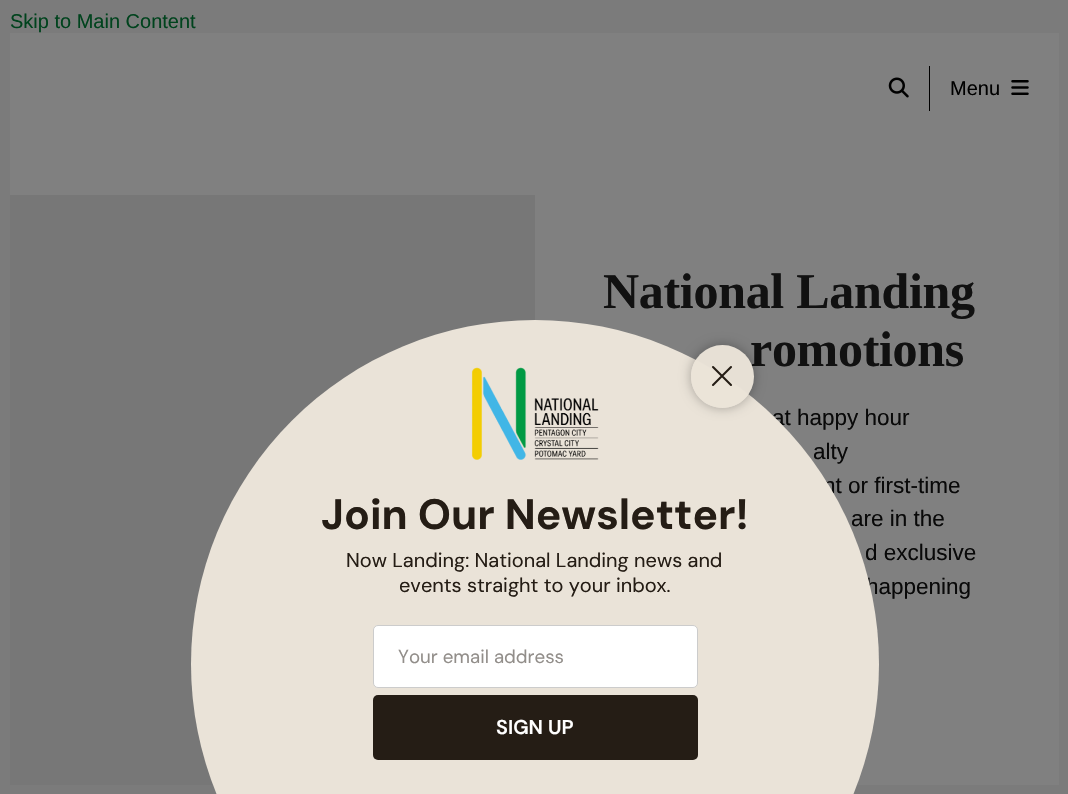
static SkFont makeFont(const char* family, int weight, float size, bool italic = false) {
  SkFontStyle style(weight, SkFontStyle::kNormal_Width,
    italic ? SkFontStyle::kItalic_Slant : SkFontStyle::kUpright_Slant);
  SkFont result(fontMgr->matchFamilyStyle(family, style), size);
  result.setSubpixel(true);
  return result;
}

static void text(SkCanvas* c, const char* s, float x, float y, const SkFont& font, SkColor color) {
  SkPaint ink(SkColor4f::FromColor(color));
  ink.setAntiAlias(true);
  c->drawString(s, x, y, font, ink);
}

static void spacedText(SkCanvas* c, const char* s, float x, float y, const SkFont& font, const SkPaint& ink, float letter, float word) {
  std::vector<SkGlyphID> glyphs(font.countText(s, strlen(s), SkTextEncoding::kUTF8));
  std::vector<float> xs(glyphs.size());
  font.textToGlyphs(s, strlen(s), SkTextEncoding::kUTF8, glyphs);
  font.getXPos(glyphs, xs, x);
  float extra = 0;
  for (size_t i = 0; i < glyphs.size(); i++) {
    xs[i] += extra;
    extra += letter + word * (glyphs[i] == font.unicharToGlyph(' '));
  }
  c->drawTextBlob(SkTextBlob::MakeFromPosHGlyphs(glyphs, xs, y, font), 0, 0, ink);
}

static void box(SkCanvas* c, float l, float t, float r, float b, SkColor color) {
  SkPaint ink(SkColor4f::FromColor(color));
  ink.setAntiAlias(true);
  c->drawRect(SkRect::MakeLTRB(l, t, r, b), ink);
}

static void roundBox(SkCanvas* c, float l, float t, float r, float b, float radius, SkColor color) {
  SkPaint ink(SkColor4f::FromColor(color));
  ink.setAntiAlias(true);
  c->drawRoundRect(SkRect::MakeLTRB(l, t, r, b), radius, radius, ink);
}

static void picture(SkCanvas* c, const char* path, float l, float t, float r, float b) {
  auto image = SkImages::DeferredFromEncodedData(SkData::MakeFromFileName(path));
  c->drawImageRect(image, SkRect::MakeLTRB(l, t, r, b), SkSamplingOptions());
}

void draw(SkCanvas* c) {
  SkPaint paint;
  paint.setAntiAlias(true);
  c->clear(0xff7b7b7b);
  SkFont face1 = makeFont("Liberation Sans", 400, 20);
  text(c, "Skip to Main Content", 10, 28, face1, 0xff00431d);
  box(c, 10, 33, 1059, 785, 0xff808080);
  box(c, 10, 195, 535, 785, 0xff777777);
  SkFont face2 = makeFont("Liberation Serif", 700, 50);
  paint.setColor(0xff111111);
  spacedText(c, "romotions", 750, 366, face2, paint, -0.3f, 0);
  SkFont face3 = makeFont("Liberation Sans", 400, 22.5f);
  text(c, "at happy hour", 772, 425, face3, 0xff090909);
  text(c, "alty", 813, 459, face3, 0xff090909);
  text(c, "nt or first-time", 823, 493, face3, 0xff090909);
  text(c, "are in the", 851, 526, face3, 0xff090909);
  text(c, "d exclusive", 865, 560, face3, 0xff090909);
  text(c, "happening", 866, 594, face3, 0xff090909);
  paint.setColor(0xffeae3d8);
  c->drawCircle(535, 664, 344, paint);
  c->save();
  c->clipPath(SkPathBuilder(SkPathFillType::kEvenOdd).moveTo(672, 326).lineTo(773, 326).lineTo(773, 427).lineTo(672, 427).close().moveTo(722.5f, 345).cubicTo(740, 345, 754, 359, 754, 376.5f).cubicTo(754, 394, 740, 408, 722.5f, 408).cubicTo(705, 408, 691, 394, 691, 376.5f).cubicTo(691, 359, 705, 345, 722.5f, 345).close().detach(), true);
  paint.setColor(0x4d000000);
  paint.setMaskFilter(SkMaskFilter::MakeBlur(kNormal_SkBlurStyle, 6));
  c->drawRoundRect(SkRect::MakeLTRB(691, 345, 754, 408), 31.5f, 31.5f, paint);
  paint.setMaskFilter(nullptr);
  c->restore();
  paint.setColor(0xf7eae3d8);
  c->drawCircle(722.5f, 376.5f, 31.5f, paint);
  paint.setStyle(SkPaint::kStroke_Style);
  paint.setStrokeWidth(2.1f);
  paint.setStrokeCap(SkPaint::kRound_Cap);
  paint.setColor(0xff251d15);
  c->drawPath(SkPathBuilder().moveTo(713, 367).lineTo(731, 385).moveTo(731, 367).lineTo(713, 385).detach(), paint);
  picture(c, "img_01.png", 471, 367, 599, 460);
  SkFont face4 = makeFont("DM Sans", 700, 42.5f);
  text(c, "Join Our Newsletter!", 321, 529, face4, 0xff251d15);
  SkFont face5 = makeFont("DM Sans", 400, 20);
  text(c, "Now Landing: National Landing news and", 346, 567, face5, 0xff251d15);
  text(c, "events straight to your inbox.", 399, 592, face5, 0xff251d15);
  paint.setStyle(SkPaint::kFill_Style);
  paint.setColor(0xffffffff);
  c->drawRoundRect(SkRect::MakeLTRB(373.5f, 625.5f, 697.5f, 687.5f), 4.5f, 4.5f, paint);
  paint.setStyle(SkPaint::kStroke_Style);
  paint.setStrokeWidth(1);
  paint.setStrokeCap(SkPaint::kButt_Cap);
  paint.setColor(0xffcccccc);
  c->drawRoundRect(SkRect::MakeLTRB(373.5f, 625.5f, 697.5f, 687.5f), 4.5f, 4.5f, paint);
  SkFont face6 = makeFont("DM Sans", 400, 18.75f);
  text(c, "Your email address", 398, 663, face6, 0xff928e8a);
  roundBox(c, 373, 695, 698, 760, 5, 0xff251d15);
  SkFont face7 = makeFont("DM Sans", 600, 20);
  text(c, "SIGN UP", 496, 734, face7, 0xffffffff);
  box(c, 929, 66, 930, 111, 0xff000000);
  picture(c, "img_02.png", 888, 77, 909, 98);
  text(c, "Menu", 950, 95, face1, 0xff000000);
  picture(c, "img_03.png", 1011, 80, 1029, 95);
  paint.setStyle(SkPaint::kFill_Style);
  paint.setColor(0xff111111);
  spacedText(c, "National Landing", 603, 308, face2, paint, -0.3f, 0);
}
